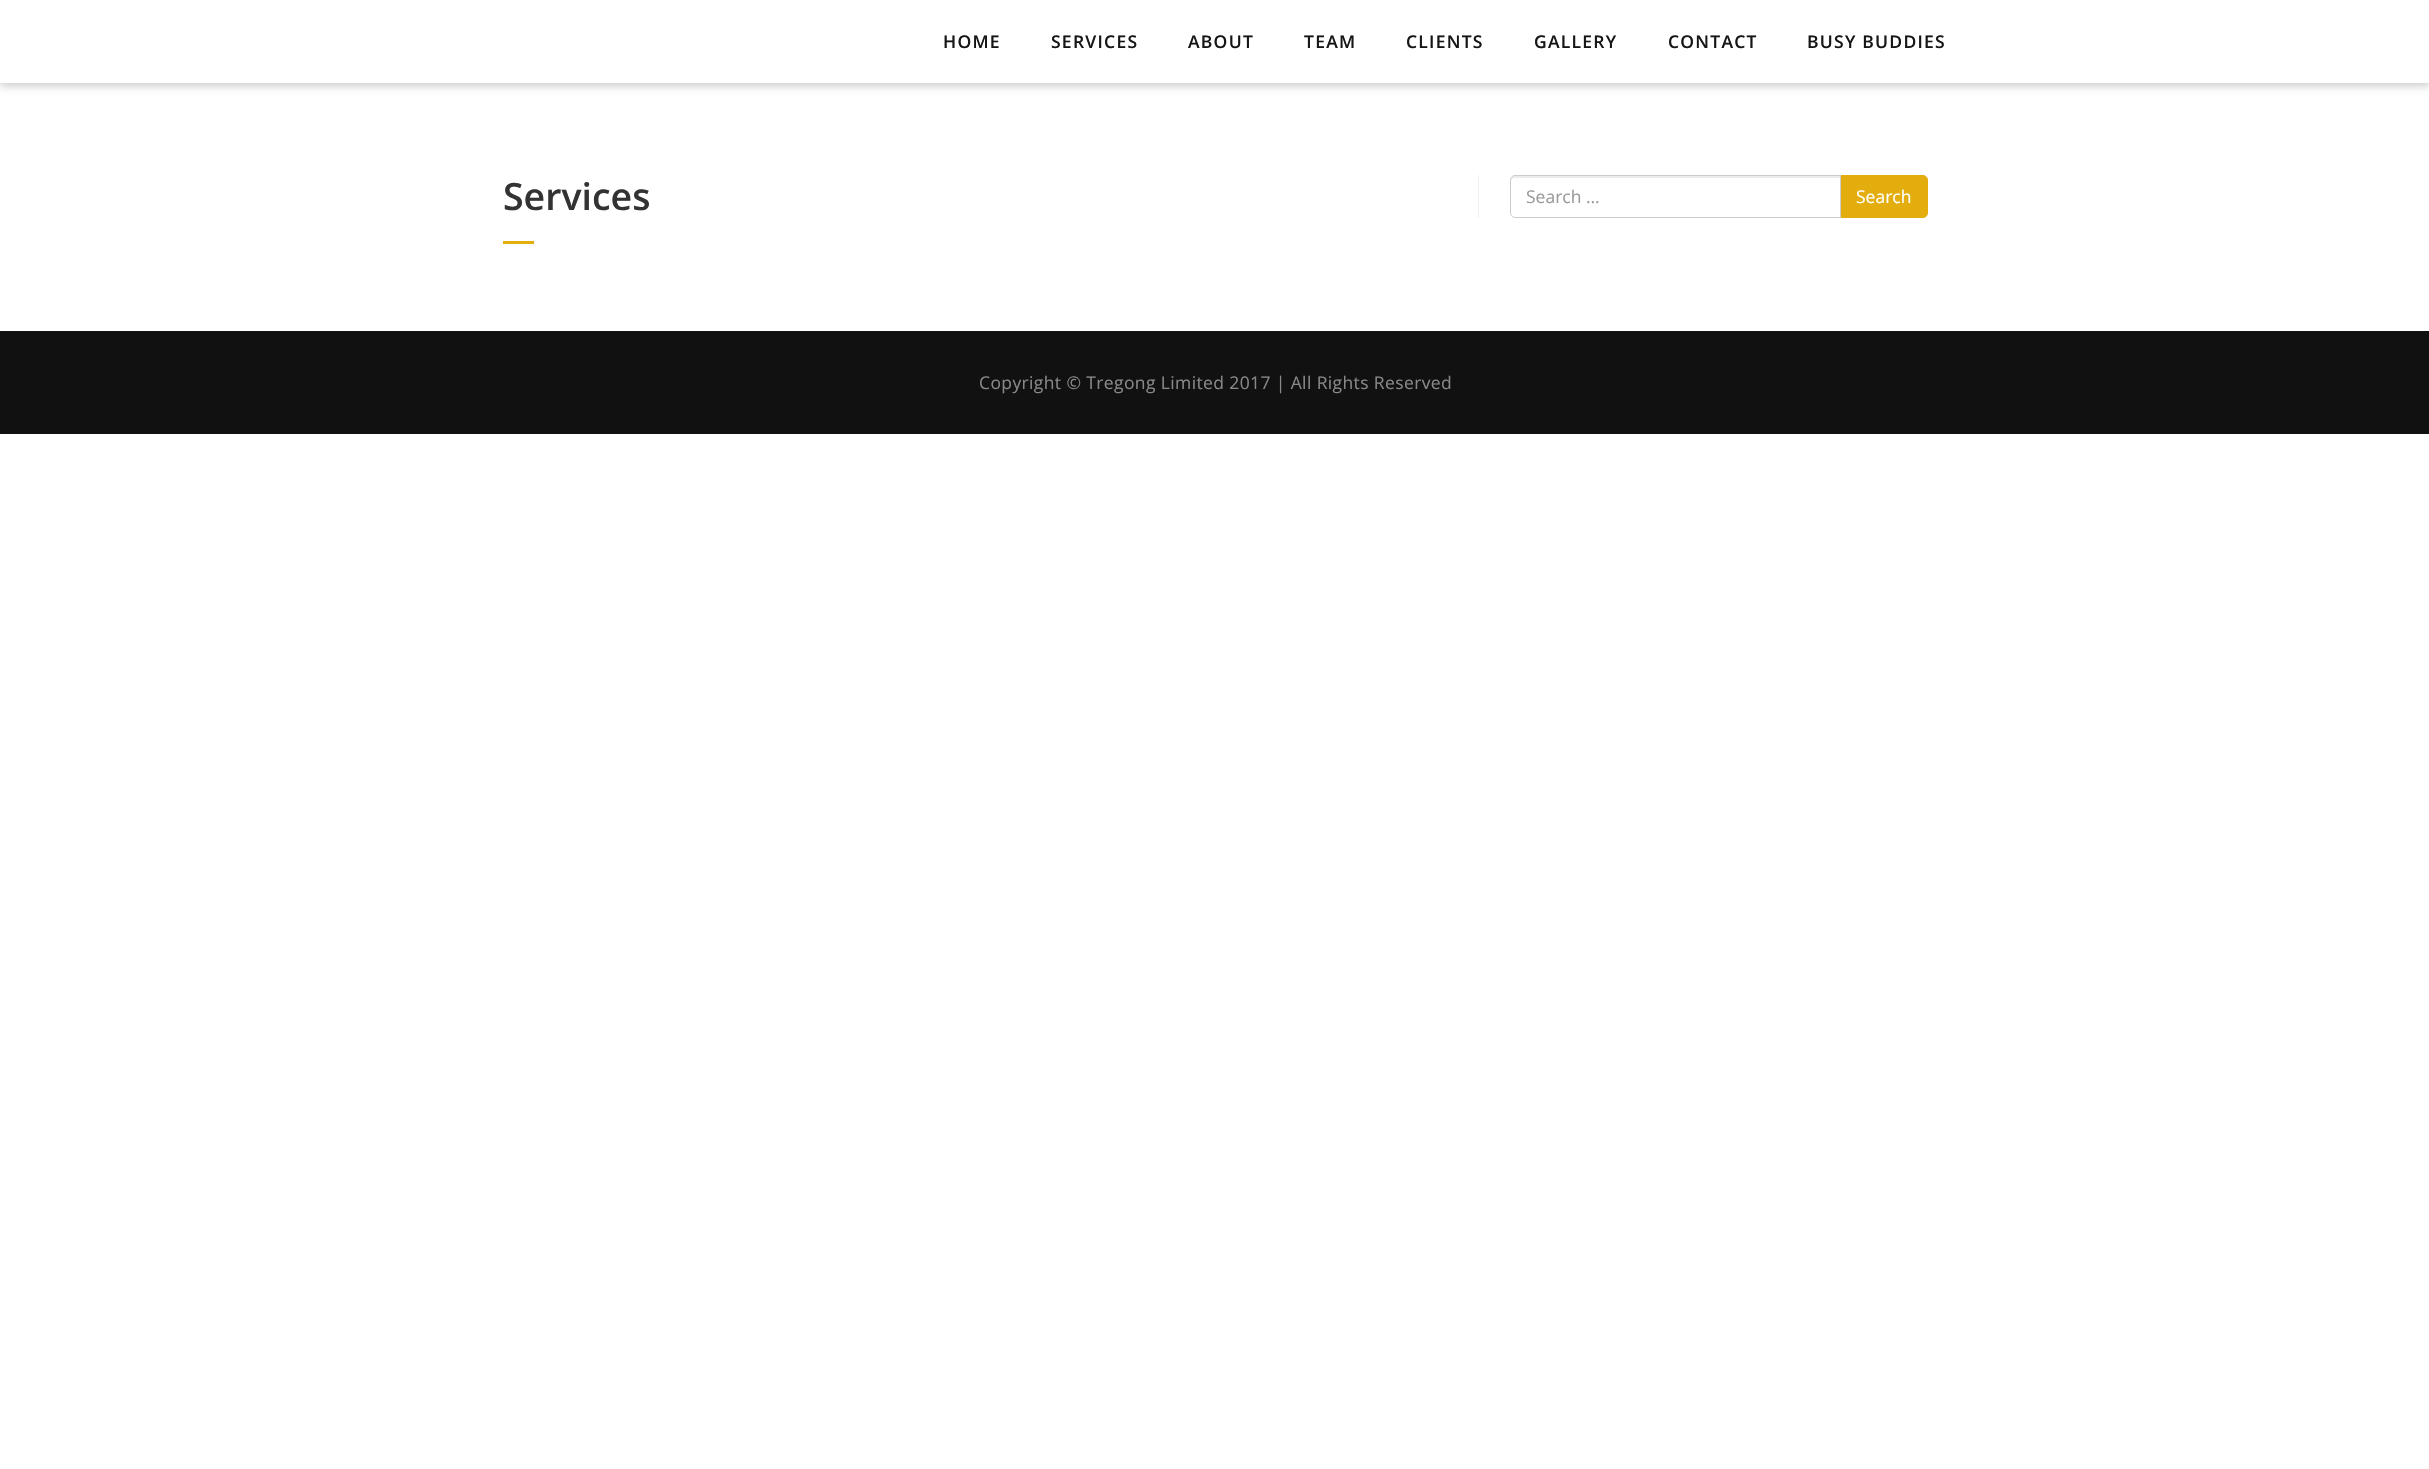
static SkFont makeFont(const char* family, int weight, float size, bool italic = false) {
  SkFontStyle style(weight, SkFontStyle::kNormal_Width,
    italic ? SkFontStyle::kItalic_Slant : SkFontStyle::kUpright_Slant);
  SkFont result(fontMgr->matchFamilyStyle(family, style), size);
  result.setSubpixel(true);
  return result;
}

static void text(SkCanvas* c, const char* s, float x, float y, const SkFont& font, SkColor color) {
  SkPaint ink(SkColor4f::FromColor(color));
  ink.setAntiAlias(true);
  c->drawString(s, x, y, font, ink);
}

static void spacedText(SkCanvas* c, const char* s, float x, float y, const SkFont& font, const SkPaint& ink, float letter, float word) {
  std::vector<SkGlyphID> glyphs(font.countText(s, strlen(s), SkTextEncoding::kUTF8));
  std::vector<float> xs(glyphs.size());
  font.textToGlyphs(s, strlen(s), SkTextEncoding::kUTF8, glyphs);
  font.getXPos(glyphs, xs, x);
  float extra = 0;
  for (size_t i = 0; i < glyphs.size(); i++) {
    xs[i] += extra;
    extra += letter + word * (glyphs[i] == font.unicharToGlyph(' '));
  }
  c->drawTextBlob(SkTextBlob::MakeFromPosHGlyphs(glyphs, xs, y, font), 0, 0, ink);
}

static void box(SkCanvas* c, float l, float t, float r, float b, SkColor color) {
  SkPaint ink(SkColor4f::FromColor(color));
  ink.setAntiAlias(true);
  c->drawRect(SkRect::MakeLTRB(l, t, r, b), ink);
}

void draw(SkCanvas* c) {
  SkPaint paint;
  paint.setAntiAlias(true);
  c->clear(0xffffffff);
  paint.setColor(0x33000000);
  paint.setMaskFilter(SkMaskFilter::MakeBlur(kNormal_SkBlurStyle, 4));
  c->drawRect(SkRect::MakeLTRB(0, 4, 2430, 86), paint);
  paint.setMaskFilter(nullptr);
  box(c, 0, 0, 2429, 83, 0xffffffff);
  SkFont face1 = makeFont("Open Sans", 600, 17.5f);
  paint.setColor(0xff161616);
  spacedText(c, "HOME", 943, 48, face1, paint, 1.25f, 0);
  spacedText(c, "SERVICES", 1051, 48, face1, paint, 1.25f, 0);
  spacedText(c, "ABOUT", 1188, 48, face1, paint, 1.25f, 0);
  spacedText(c, "TEAM", 1304, 48, face1, paint, 1.25f, 0);
  spacedText(c, "CLIENTS", 1406, 48, face1, paint, 1.25f, 0);
  spacedText(c, "GALLERY", 1534, 48, face1, paint, 1.25f, 0);
  spacedText(c, "CONTACT", 1668, 48, face1, paint, 1.25f, 0);
  spacedText(c, "BUSY BUDDIES", 1807, 48, face1, paint, 1.25f, 0);
  SkFont face2 = makeFont("Open Sans", 600, 37.5f);
  text(c, "Services", 503, 210, face2, 0xff333333);
  box(c, 503, 241, 534, 244, 0xffe3ae0d);
  box(c, 1478, 175, 1479, 218, 0xffefefef);
  paint.setColor(0xffe3ae0d);
  c->drawPath(SkPathBuilder().moveTo(1840.5f, 175.5f).lineTo(1923, 175.5f).cubicTo(1925.5f, 175.5f, 1927.5f, 177.5f, 1927.5f, 180).lineTo(1927.5f, 213).cubicTo(1927.5f, 215.5f, 1925.5f, 217.5f, 1923, 217.5f).lineTo(1840.5f, 217.5f).close().detach(), paint);
  paint.setStyle(SkPaint::kStroke_Style);
  paint.setStrokeWidth(1);
  c->drawPath(SkPathBuilder().moveTo(1840.5f, 175.5f).lineTo(1923, 175.5f).cubicTo(1925.5f, 175.5f, 1927.5f, 177.5f, 1927.5f, 180).lineTo(1927.5f, 213).cubicTo(1927.5f, 215.5f, 1925.5f, 217.5f, 1923, 217.5f).lineTo(1840.5f, 217.5f).close().detach(), paint);
  paint.setStyle(SkPaint::kFill_Style);
  paint.setColor(0xffffffff);
  c->drawPath(SkPathBuilder().moveTo(1515, 175).lineTo(1841, 175).lineTo(1841, 218).lineTo(1515, 218).cubicTo(1512, 218, 1510, 216, 1510, 213).lineTo(1510, 180).cubicTo(1510, 177, 1512, 175, 1515, 175).close().detach(), paint);
  paint.setColor(0xffececec);
  c->drawPath(SkPathBuilder().moveTo(1515, 178).lineTo(1840, 178).lineTo(1840, 176).lineTo(1515, 176).cubicTo(1513, 176, 1511, 178, 1511, 180).lineTo(1511, 181).cubicTo(1511, 179, 1513, 178, 1515, 178).close().detach(), paint);
  paint.setStyle(SkPaint::kStroke_Style);
  paint.setColor(0xffcccccc);
  c->drawPath(SkPathBuilder().moveTo(1515, 175.5f).lineTo(1840.5f, 175.5f).lineTo(1840.5f, 217.5f).lineTo(1515, 217.5f).cubicTo(1512.5f, 217.5f, 1510.5f, 215.5f, 1510.5f, 213).lineTo(1510.5f, 180).cubicTo(1510.5f, 177.5f, 1512.5f, 175.5f, 1515, 175.5f).close().detach(), paint);
  SkFont face3 = makeFont("Open Sans", 400, 17.5f);
  text(c, "Search …", 1526, 203, face3, 0xff999999);
  text(c, "Search", 1856, 203, face3, 0xffffffff);
  box(c, 0, 331, 2429, 434, 0xff111111);
  paint.setStyle(SkPaint::kFill_Style);
  paint.setColor(0xff888888);
  spacedText(c, "Copyright © Tregong Limited 2017 | All Rights Reserved", 979, 389, face3, paint, 0.38f, 0);
}
